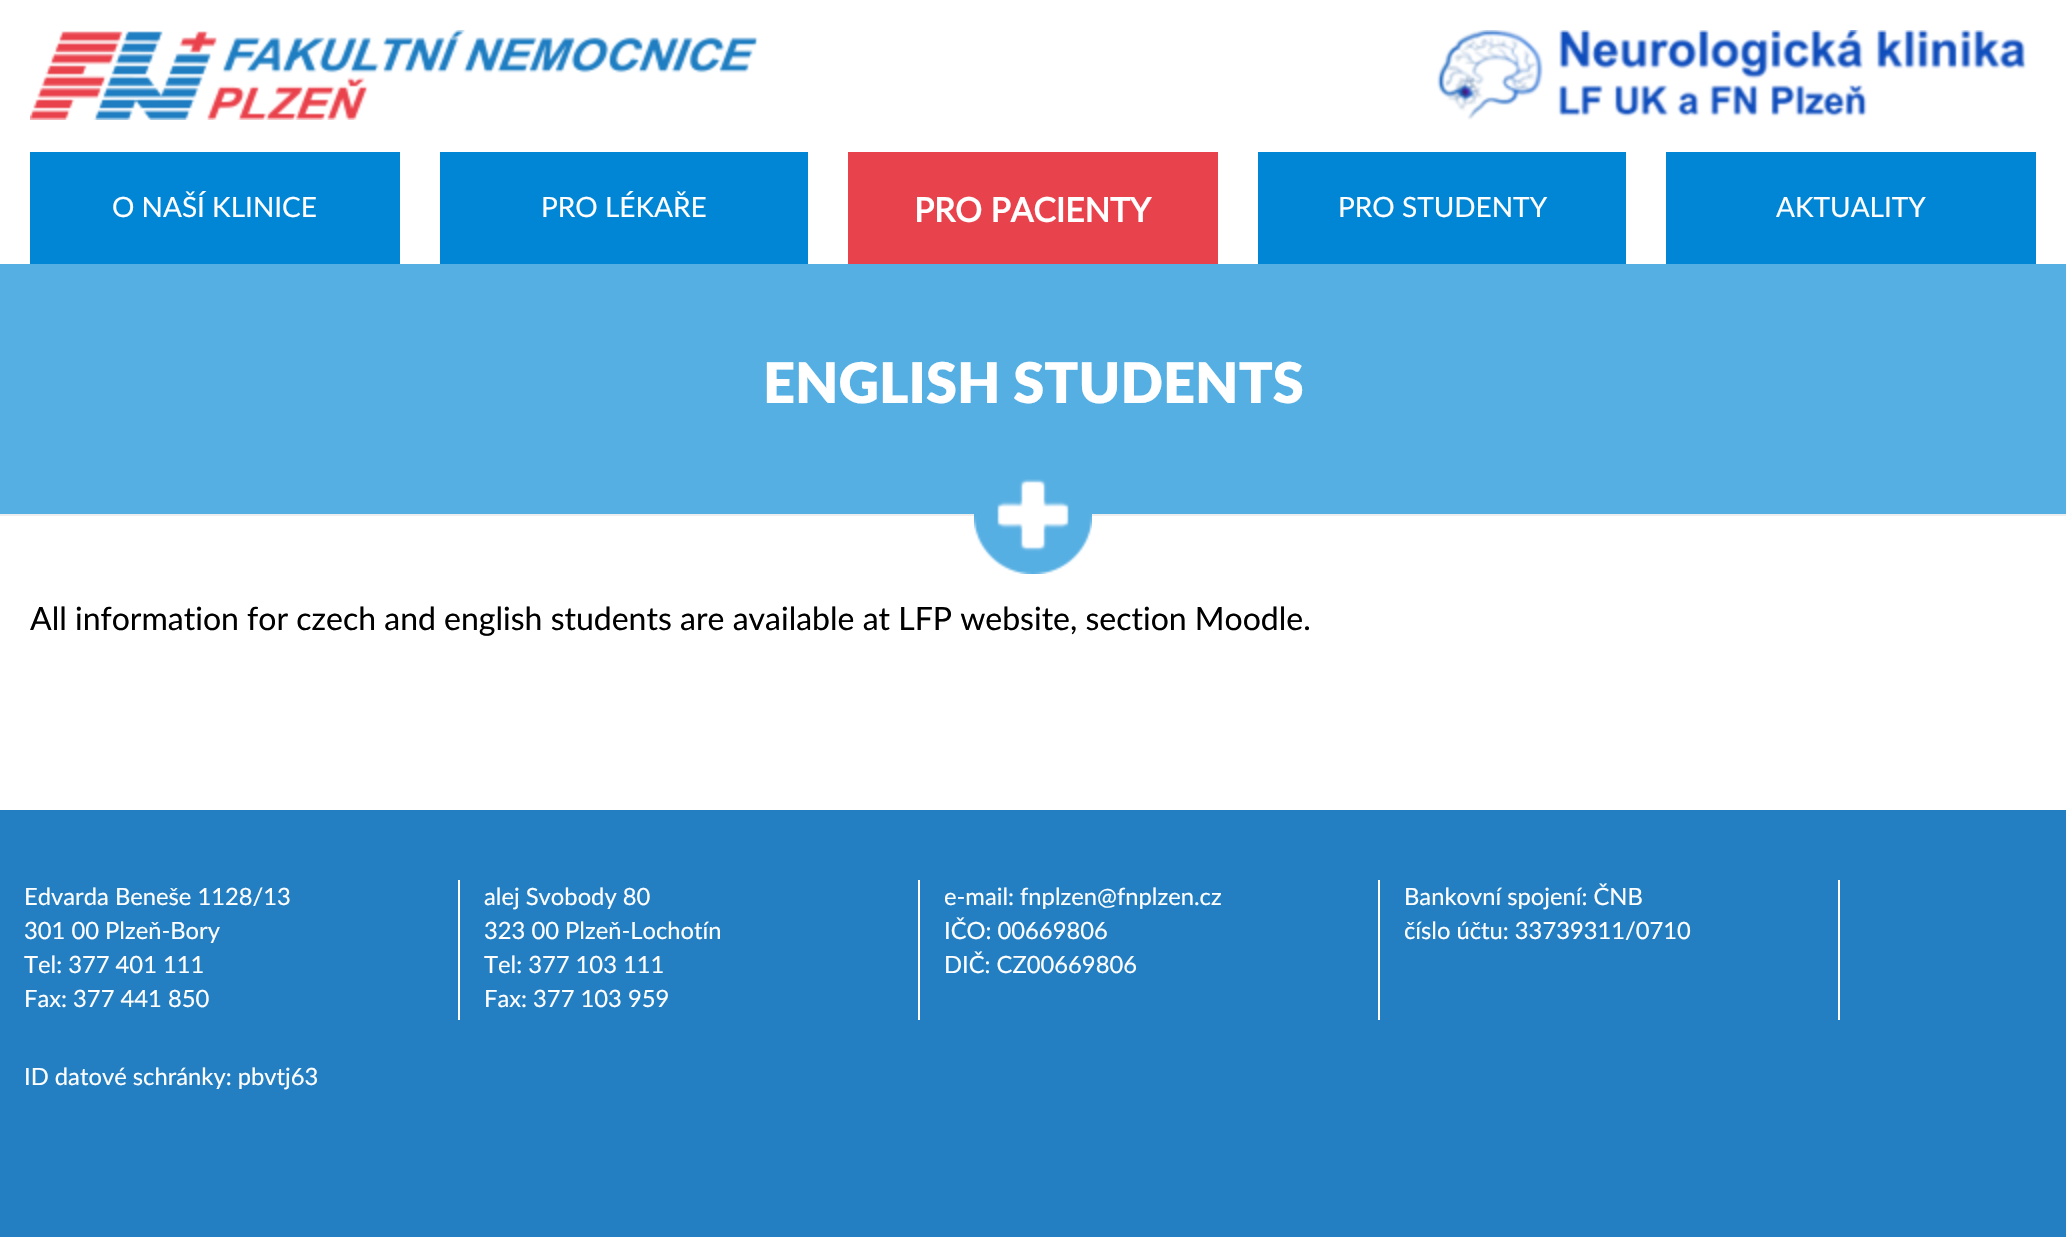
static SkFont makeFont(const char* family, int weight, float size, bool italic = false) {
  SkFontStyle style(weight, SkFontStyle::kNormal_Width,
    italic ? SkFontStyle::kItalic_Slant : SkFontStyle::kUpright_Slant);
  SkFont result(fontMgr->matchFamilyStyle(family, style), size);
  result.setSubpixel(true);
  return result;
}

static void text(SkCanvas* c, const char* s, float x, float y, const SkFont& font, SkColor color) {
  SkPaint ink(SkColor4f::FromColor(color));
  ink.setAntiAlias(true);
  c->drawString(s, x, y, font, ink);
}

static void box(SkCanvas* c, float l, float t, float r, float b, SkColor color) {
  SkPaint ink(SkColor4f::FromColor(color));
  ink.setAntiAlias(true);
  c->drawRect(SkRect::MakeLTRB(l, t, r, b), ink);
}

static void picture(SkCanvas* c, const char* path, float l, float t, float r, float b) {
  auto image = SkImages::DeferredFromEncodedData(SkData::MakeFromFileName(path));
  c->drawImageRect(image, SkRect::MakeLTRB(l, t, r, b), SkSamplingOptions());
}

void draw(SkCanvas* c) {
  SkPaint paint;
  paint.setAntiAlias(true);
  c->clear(0xffffffff);
  picture(c, "img_01.png", 30, 30, 758, 120);
  picture(c, "img_02.png", 1437, 30, 2026, 120);
  box(c, 30, 152, 400, 264, 0xff0186d5);
  SkFont face1 = makeFont("Lato", 400, 28);
  text(c, "O NAŠÍ KLINICE", 112, 217, face1, 0xffffffff);
  box(c, 440, 152, 808, 264, 0xff0186d5);
  text(c, "PRO LÉKAŘE", 541, 217, face1, 0xffffffff);
  box(c, 848, 152, 1218, 264, 0xffe8424c);
  SkFont face2 = makeFont("Lato", 700, 33.5f);
  text(c, "PRO PACIENTY", 914, 222, face2, 0xffffffff);
  box(c, 1258, 152, 1626, 264, 0xff0186d5);
  text(c, "PRO STUDENTY", 1338, 217, face1, 0xffffffff);
  box(c, 1666, 152, 2036, 264, 0xff0186d5);
  text(c, "AKTUALITY", 1776, 217, face1, 0xffffffff);
  box(c, 0, 264, 2066, 514, 0xff55afe3);
  box(c, 0, 514, 2066, 516, 0xffeeeeee);
  SkFont face3 = makeFont("Lato", 900, 56);
  text(c, "ENGLISH STUDENTS", 763, 403, face3, 0xffffffff);
  picture(c, "img_03.png", 974, 479, 1092, 574);
  SkFont face4 = makeFont("Lato", 400, 32);
  text(c, "All information for czech and english students are available at LFP website, section Moodle.", 30, 630, face4, 0xff000000);
  box(c, 0, 810, 2066, 1237, 0xff237fc2);
  box(c, 458, 880, 460, 1020, 0xffffffff);
  SkFont face5 = makeFont("Lato", 400, 23.75f);
  text(c, "Edvarda Beneše 1128/13", 24, 905, face5, 0xffffffff);
  text(c, "301 00 Plzeň-Bory", 24, 939, face5, 0xffffffff);
  text(c, "Tel: 377 401 111", 24, 973, face5, 0xffffffff);
  text(c, "Fax: 377 441 850", 24, 1007, face5, 0xffffffff);
  box(c, 918, 880, 920, 1020, 0xffffffff);
  text(c, "alej Svobody 80", 484, 905, face5, 0xffffffff);
  text(c, "323 00 Plzeň-Lochotín", 484, 939, face5, 0xffffffff);
  text(c, "Tel: 377 103 111", 484, 973, face5, 0xffffffff);
  text(c, "Fax: 377 103 959", 484, 1007, face5, 0xffffffff);
  box(c, 1378, 880, 1380, 1020, 0xffffffff);
  text(c, "e-mail: fnplzen@fnplzen.cz", 944, 905, face5, 0xffffffff);
  text(c, "IČO: 00669806", 944, 939, face5, 0xffffffff);
  text(c, "DIČ: CZ00669806", 944, 973, face5, 0xffffffff);
  box(c, 1838, 880, 1840, 1020, 0xffffffff);
  text(c, "Bankovní spojení: ČNB", 1404, 905, face5, 0xffffffff);
  text(c, "číslo účtu: 33739311/0710", 1404, 939, face5, 0xffffffff);
  text(c, "ID datové schránky: pbvtj63", 24, 1085, face5, 0xffffffff);
}
